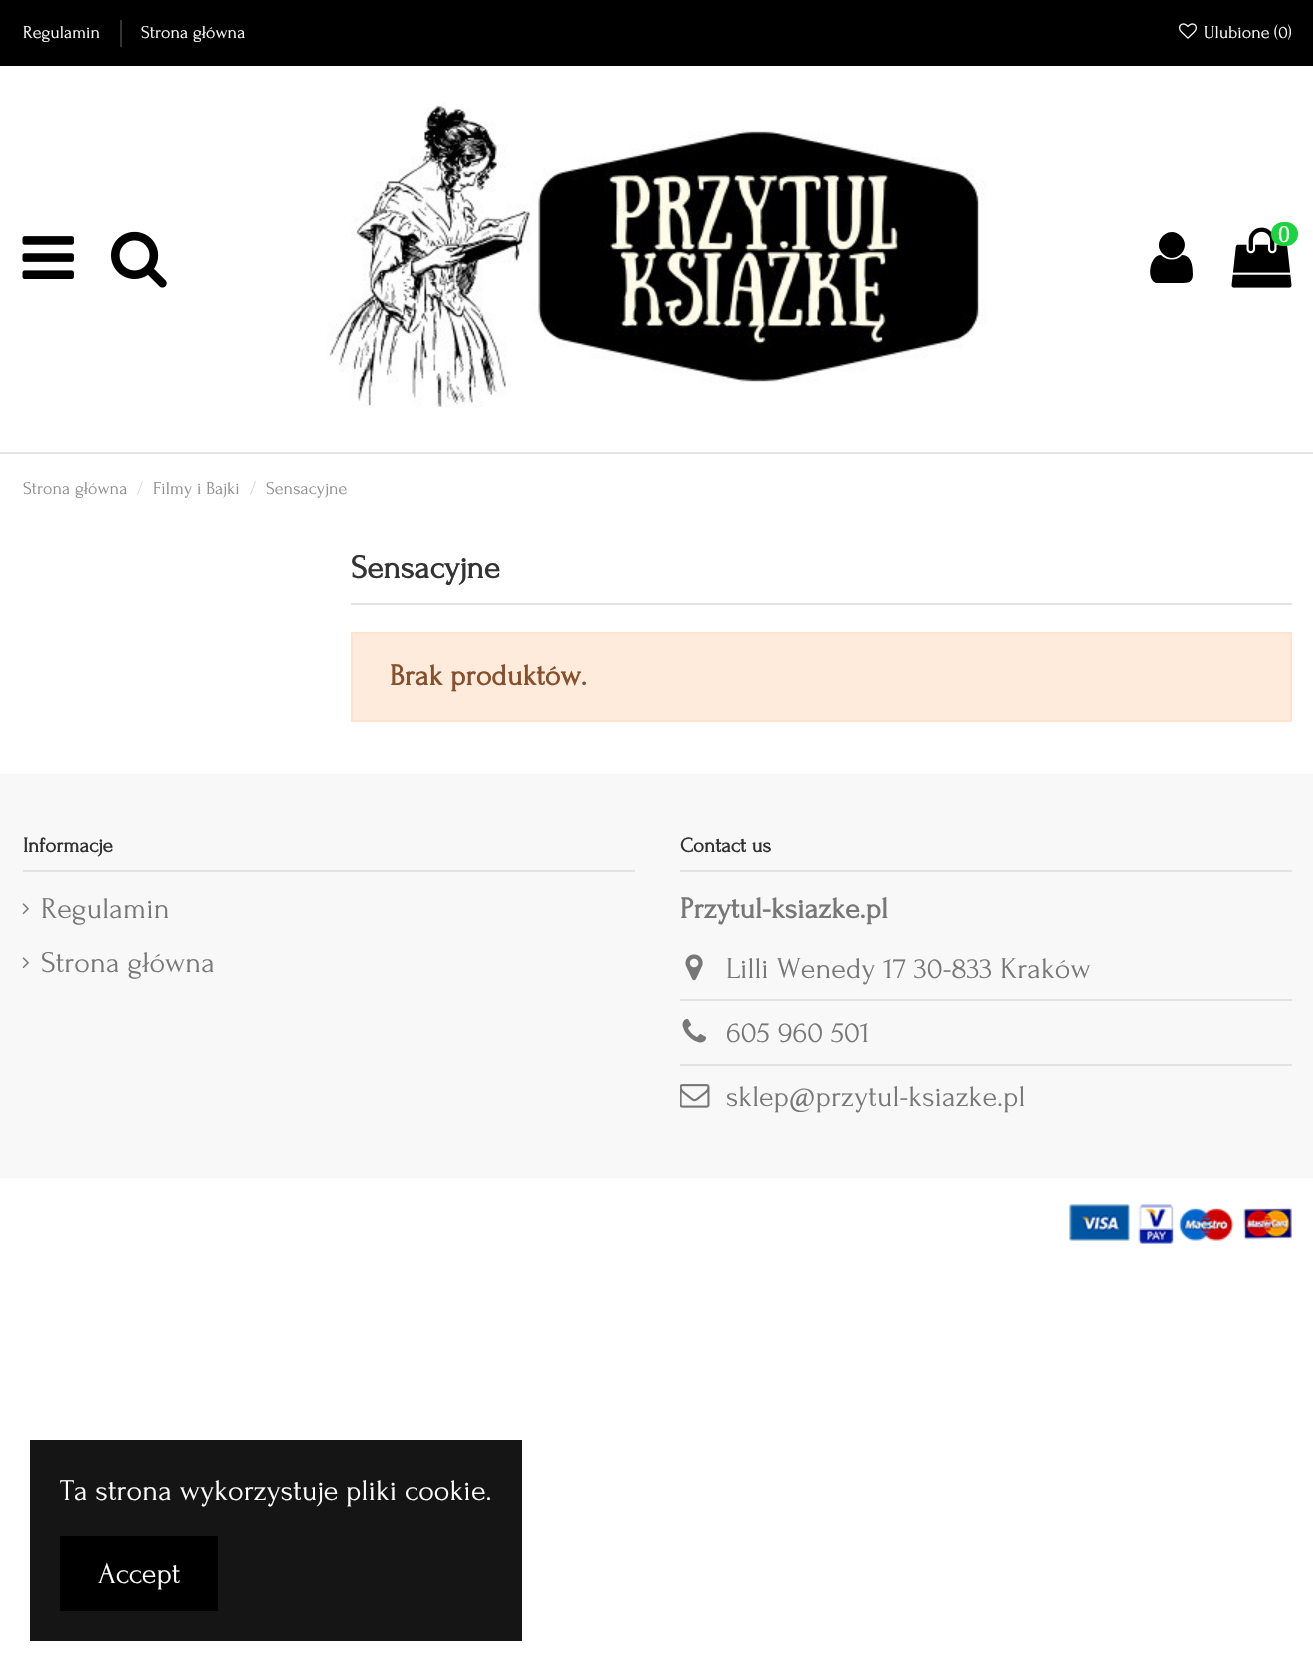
static SkFont makeFont(const char* family, int weight, float size, bool italic = false) {
  SkFontStyle style(weight, SkFontStyle::kNormal_Width,
    italic ? SkFontStyle::kItalic_Slant : SkFontStyle::kUpright_Slant);
  SkFont result(fontMgr->matchFamilyStyle(family, style), size);
  result.setSubpixel(true);
  return result;
}

static void text(SkCanvas* c, const char* s, float x, float y, const SkFont& font, SkColor color) {
  SkPaint ink(SkColor4f::FromColor(color));
  ink.setAntiAlias(true);
  c->drawString(s, x, y, font, ink);
}

static void box(SkCanvas* c, float l, float t, float r, float b, SkColor color) {
  SkPaint ink(SkColor4f::FromColor(color));
  ink.setAntiAlias(true);
  c->drawRect(SkRect::MakeLTRB(l, t, r, b), ink);
}

static void roundBox(SkCanvas* c, float l, float t, float r, float b, float radius, SkColor color) {
  SkPaint ink(SkColor4f::FromColor(color));
  ink.setAntiAlias(true);
  c->drawRoundRect(SkRect::MakeLTRB(l, t, r, b), radius, radius, ink);
}

static void picture(SkCanvas* c, const char* path, float l, float t, float r, float b) {
  auto image = SkImages::DeferredFromEncodedData(SkData::MakeFromFileName(path));
  c->drawImageRect(image, SkRect::MakeLTRB(l, t, r, b), SkSamplingOptions());
}

void draw(SkCanvas* c) {
  SkPaint paint;
  paint.setAntiAlias(true);
  c->clear(0xffffffff);
  box(c, 0, 0, 1313, 66, 0xff000000);
  SkFont face1 = makeFont("Forum", 400, 18);
  text(c, "Regulamin", 23, 38, face1, 0xffffffff);
  box(c, 120, 20, 122, 47, 0xff333333);
  text(c, "Strona główna", 141, 38, face1, 0xffffffff);
  picture(c, "img_01.png", 1179, 23, 1197, 39);
  text(c, "Ulubione (0)", 1204, 38, face1, 0xffffffff);
  box(c, 0, 452, 1313, 454, 0xffe3e3e3);
  picture(c, "img_02.png", 22, 236, 74, 279);
  picture(c, "img_03.png", 111, 231, 167, 288);
  picture(c, "img_04.png", 327, 101, 987, 408);
  paint.setColor(0xff000000);
  c->drawPath(SkPathBuilder().moveTo(1193, 274).cubicTo(1193, 283, 1188, 283, 1181, 283).lineTo(1156, 283).cubicTo(1146, 279, 1150, 255, 1161, 255).cubicTo(1167, 261, 1177, 261, 1182, 255).cubicTo(1192, 255, 1193, 267, 1193, 274).close().moveTo(1181, 236).cubicTo(1193, 248, 1175, 266, 1163, 254).cubicTo(1151, 242, 1169, 224, 1181, 236).close().detach(), paint);
  picture(c, "img_05.png", 1231, 227, 1292, 288);
  roundBox(c, 1271, 222, 1298, 246, 12, 0xff1bd33f);
  SkFont face2 = makeFont("Liberation Serif", 400, 24);
  text(c, "0", 1278, 242, face2, 0xffffffff);
  text(c, "Strona główna", 23, 494, face1, 0xff8f8f8f);
  text(c, "/", 137, 494, face1, 0xffd2d2d2);
  text(c, "Filmy i Bajki", 153, 494, face1, 0xff8f8f8f);
  text(c, "/", 250, 494, face1, 0xffd2d2d2);
  text(c, "Sensacyjne", 266, 494, face1, 0xff8f8f8f);
  box(c, 351, 603, 1292, 605, 0xffe3e3e3);
  SkFont face3 = makeFont("Forum", 700, 33);
  text(c, "Sensacyjne", 351, 578, face3, 0xff333333);
  paint.setColor(0xffffebdc);
  c->drawRect(SkRect::MakeLTRB(352, 633, 1291, 721), paint);
  paint.setStyle(SkPaint::kStroke_Style);
  paint.setStrokeWidth(2);
  paint.setColor(0xffffe3cf);
  c->drawRect(SkRect::MakeLTRB(352, 633, 1291, 721), paint);
  SkFont face4 = makeFont("Forum", 700, 30);
  text(c, "Brak produktów.", 390, 685, face4, 0xff85502b);
  box(c, 0, 774, 1313, 1178, 0xfff8f8f8);
  box(c, 23, 870, 635, 872, 0xffe3e3e3);
  SkFont face5 = makeFont("Forum", 700, 21);
  text(c, "Informacje", 23, 852, face5, 0xff333333);
  picture(c, "img_06.png", 22, 903, 29, 915);
  SkFont face6 = makeFont("Forum", 400, 30);
  text(c, "Regulamin", 41, 918, face6, 0xff777777);
  picture(c, "img_06.png", 22, 957, 29, 969);
  text(c, "Strona główna", 41, 972, face6, 0xff777777);
  box(c, 680, 870, 1292, 872, 0xffe3e3e3);
  text(c, "Contact us", 680, 852, face5, 0xff333333);
  text(c, "Przytul-ksiazke.pl", 680, 918, face4, 0xff777777);
  picture(c, "img_07.png", 685, 954, 703, 981);
  text(c, "Lilli Wenedy 17 30-833 Kraków", 726, 978, face6, 0xff777777);
  box(c, 680, 999, 1292, 1001, 0xffe2e2e2);
  picture(c, "img_08.png", 682, 1018, 707, 1043);
  text(c, "605 960 501", 726, 1042, face6, 0xff777777);
  box(c, 680, 1064, 1292, 1066, 0xffe2e2e2);
  picture(c, "img_09.png", 680, 1084, 710, 1108);
  text(c, "sklep@przytul-ksiazke.pl", 726, 1106, face6, 0xff777777);
  picture(c, "img_10.png", 1069, 1204, 1292, 1244);
  box(c, 30, 1440, 522, 1641, 0xff151515);
  text(c, "Ta strona wykorzystuje pliki cookie.", 60, 1500, face6, 0xffffffff);
  box(c, 60, 1536, 218, 1611, 0xff000000);
  text(c, "Accept", 98, 1583, face6, 0xffffffff);
}
